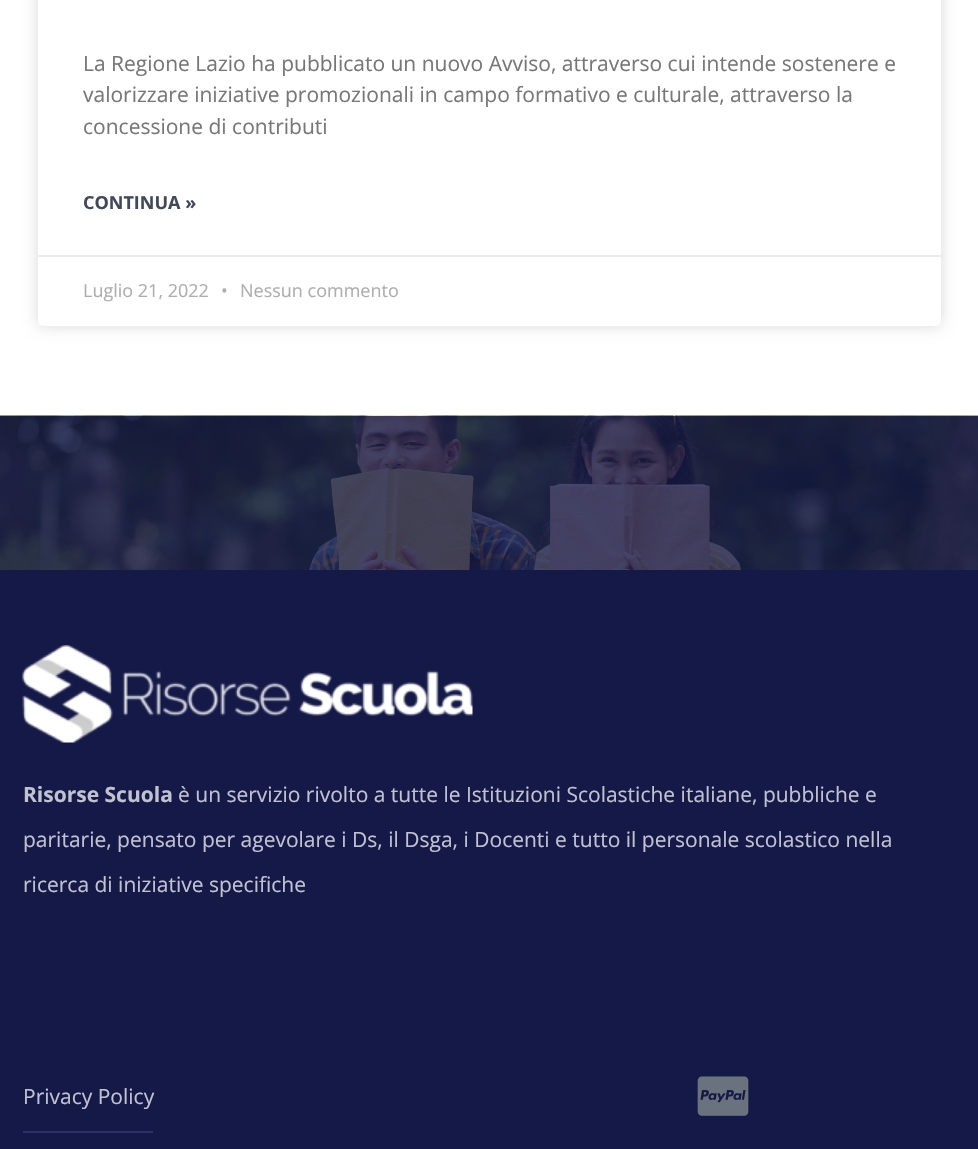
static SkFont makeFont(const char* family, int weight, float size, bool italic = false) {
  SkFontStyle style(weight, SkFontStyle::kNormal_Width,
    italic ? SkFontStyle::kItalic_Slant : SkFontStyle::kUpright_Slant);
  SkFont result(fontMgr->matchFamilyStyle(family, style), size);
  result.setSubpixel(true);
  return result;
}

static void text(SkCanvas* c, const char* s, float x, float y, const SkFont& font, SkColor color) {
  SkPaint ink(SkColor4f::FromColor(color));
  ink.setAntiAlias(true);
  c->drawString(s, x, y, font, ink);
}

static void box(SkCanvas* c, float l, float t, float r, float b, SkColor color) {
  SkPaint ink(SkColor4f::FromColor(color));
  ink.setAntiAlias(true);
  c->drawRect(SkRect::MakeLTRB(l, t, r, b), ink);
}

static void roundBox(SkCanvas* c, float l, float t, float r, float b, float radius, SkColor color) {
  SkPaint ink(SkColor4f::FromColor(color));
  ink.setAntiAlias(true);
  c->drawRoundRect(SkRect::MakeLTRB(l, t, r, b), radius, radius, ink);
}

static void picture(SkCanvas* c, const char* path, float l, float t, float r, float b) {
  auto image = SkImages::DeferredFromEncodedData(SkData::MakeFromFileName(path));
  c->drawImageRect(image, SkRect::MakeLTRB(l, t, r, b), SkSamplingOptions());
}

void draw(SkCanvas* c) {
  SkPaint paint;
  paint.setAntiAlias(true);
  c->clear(0xffffffff);
  paint.setColor(0x26000000);
  paint.setMaskFilter(SkMaskFilter::MakeBlur(kNormal_SkBlurStyle, 7.5f));
  c->drawRoundRect(SkRect::MakeLTRB(38, -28, 941, 326), 5, 5, paint);
  paint.setMaskFilter(nullptr);
  roundBox(c, 38, -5, 941, 326, 5, 0xffffffff);
  SkFont face1 = makeFont("Open Sans", 400, 21);
  text(c, "La Regione Lazio ha pubblicato un nuovo Avviso, attraverso cui intende sostenere e", 83, 71, face1, 0xff777777);
  text(c, "valorizzare iniziative promozionali in campo formativo e culturale, attraverso la", 83, 102, face1, 0xff777777);
  text(c, "concessione di contributi", 83, 134, face1, 0xff777777);
  SkFont face2 = makeFont("Open Sans", 700, 18);
  text(c, "CONTINUA »", 83, 209, face2, 0xff42495b);
  box(c, 38, 255, 941, 257, 0xffeaeaea);
  SkFont face3 = makeFont("Open Sans", 400, 18);
  text(c, "Luglio 21, 2022", 83, 297, face3, 0xffadadad);
  text(c, "•", 221, 297, face3, 0xffadadad);
  text(c, "Nessun commento", 240, 297, face3, 0xffadadad);
  picture(c, "img_01.png", 0, 415, 978, 570);
  box(c, 0, 570, 978, 1149, 0xff151948);
  picture(c, "img_02.png", 22, 645, 473, 743);
  SkFont face4 = makeFont("Open Sans", 700, 21);
  text(c, "Risorse Scuola", 23, 802, face4, 0xffc1c2d0);
  text(c, "è un servizio rivolto a tutte le Istituzioni Scolastiche italiane, pubbliche e", 178, 802, face1, 0xffc1c2d0);
  text(c, "paritarie, pensato per agevolare i Ds, il Dsga, i Docenti e tutto il personale scolastico nella", 23, 847, face1, 0xffc1c2d0);
  text(c, "ricerca di iniziative specifiche", 23, 892, face1, 0xffc1c2d0);
  box(c, 23, 1131, 153, 1133, 0xff2c316e);
  text(c, "Privacy Policy", 23, 1104, face1, 0xffc1c2d0);
  picture(c, "img_03.png", 697, 1076, 749, 1116);
}
